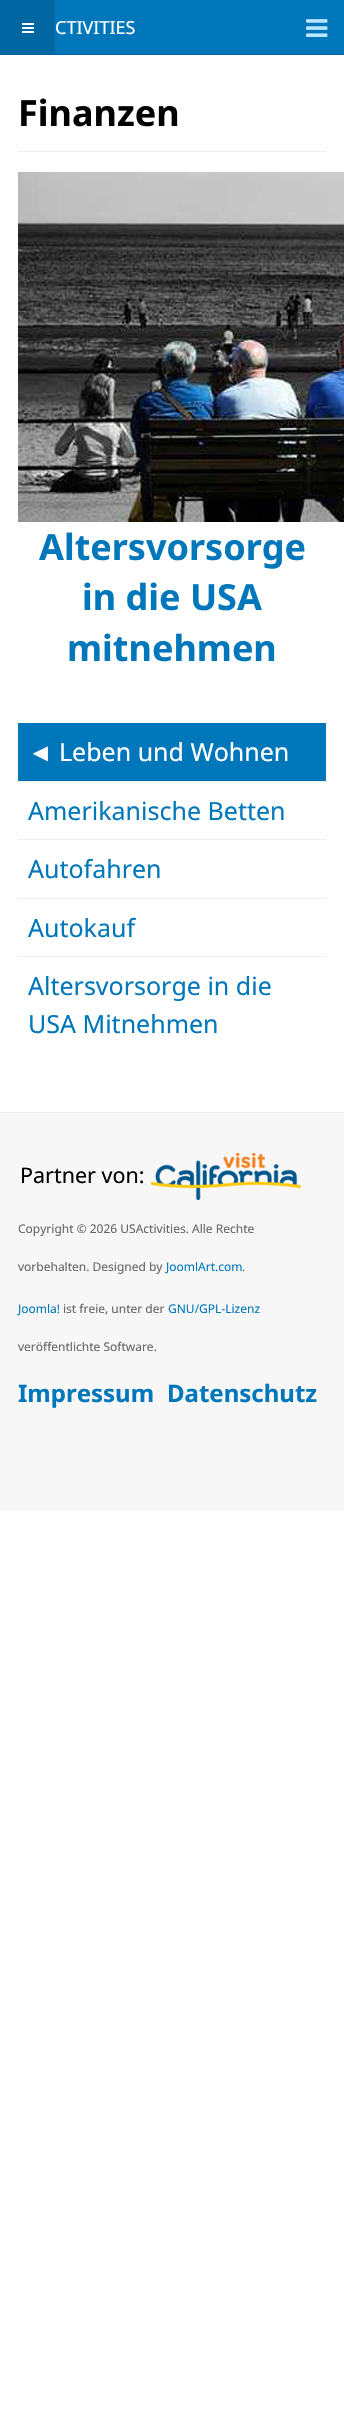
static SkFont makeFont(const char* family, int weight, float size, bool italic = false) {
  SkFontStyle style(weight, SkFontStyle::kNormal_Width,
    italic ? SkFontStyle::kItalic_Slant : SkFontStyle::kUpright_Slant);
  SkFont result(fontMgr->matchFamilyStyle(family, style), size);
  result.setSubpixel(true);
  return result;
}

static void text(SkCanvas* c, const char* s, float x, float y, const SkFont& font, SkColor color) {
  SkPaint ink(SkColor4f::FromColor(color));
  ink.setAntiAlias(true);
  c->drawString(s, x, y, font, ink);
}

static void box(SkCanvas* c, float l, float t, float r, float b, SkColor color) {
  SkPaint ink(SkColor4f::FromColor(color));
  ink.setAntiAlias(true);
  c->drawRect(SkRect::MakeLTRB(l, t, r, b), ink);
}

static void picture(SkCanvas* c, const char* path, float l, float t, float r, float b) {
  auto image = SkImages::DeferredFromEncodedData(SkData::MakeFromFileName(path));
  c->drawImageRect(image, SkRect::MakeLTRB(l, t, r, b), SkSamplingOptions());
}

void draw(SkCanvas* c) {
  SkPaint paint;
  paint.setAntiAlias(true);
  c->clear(0xffffffff);
  box(c, 55, 0, 344, 54, 0xff0077bb);
  box(c, 55, 54, 344, 55, 0xff0067a2);
  box(c, 0, 0, 55, 55, 0xff0067a2);
  picture(c, "img_01.png", 22, 23, 34, 33);
  SkFont face1 = makeFont("Noto Sans", 400, 18);
  text(c, "CTIVITIES", 55, 34, face1, 0xffffffff);
  picture(c, "img_02.png", 306, 19, 328, 37);
  box(c, 18, 151, 326, 152, 0xffeeeeee);
  SkFont face2 = makeFont("Noto Sans", 700, 36);
  text(c, "Finanzen", 18, 126, face2, 0xff000000);
  picture(c, "img_03.png", 18, 172, 344, 522);
  text(c, "Altersvorsorge", 39, 560, face2, 0xff0077bb);
  text(c, "in die USA", 82, 610, face2, 0xff0077bb);
  text(c, "mitnehmen", 67, 661, face2, 0xff0077bb);
  box(c, 18, 723, 326, 781, 0xff0077bb);
  SkFont face3 = makeFont("Liberation Sans", 400, 25);
  text(c, "◄", 28, 761, face3, 0xffffffff);
  SkFont face4 = makeFont("Noto Sans", 400, 25);
  text(c, "Leben und Wohnen", 59, 761, face4, 0xffffffff);
  box(c, 18, 781, 326, 782, 0xffeeeeee);
  text(c, "Amerikanische Betten", 28, 820, face4, 0xff0077bb);
  box(c, 18, 839, 326, 840, 0xffeeeeee);
  text(c, "Autofahren", 28, 878, face4, 0xff0077bb);
  box(c, 18, 898, 326, 899, 0xffeeeeee);
  text(c, "Autokauf", 28, 937, face4, 0xff0077bb);
  box(c, 18, 956, 326, 957, 0xffeeeeee);
  text(c, "Altersvorsorge in die", 28, 995, face4, 0xff0077bb);
  text(c, "USA Mitnehmen", 28, 1033, face4, 0xff0077bb);
  box(c, 0, 1113, 344, 1511, 0xfff7f7f7);
  box(c, 0, 1112, 344, 1113, 0xffeeeeee);
  SkFont face5 = makeFont("Noto Sans", 400, 21.5f);
  text(c, "Partner von:", 20, 1183, face5, 0xff000000);
  picture(c, "img_04.png", 151, 1153, 301, 1200);
  SkFont face6 = makeFont("Noto Sans", 400, 12);
  text(c, "Copyright © 2026 USActivities. Alle Rechte", 18, 1233, face6, 0xff666666);
  text(c, "vorbehalten. Designed by", 18, 1271, face6, 0xff666666);
  text(c, "JoomlArt.com", 166, 1271, face6, 0xff0077bb);
  text(c, ".", 242, 1271, face6, 0xff666666);
  text(c, "Joomla!", 18, 1313, face6, 0xff0077bb);
  text(c, "ist freie, unter der", 63, 1313, face6, 0xff666666);
  text(c, "GNU/GPL-Lizenz", 168, 1313, face6, 0xff0077bb);
  text(c, "veröffentlichte Software.", 18, 1351, face6, 0xff666666);
  SkFont face7 = makeFont("Noto Sans", 700, 24);
  text(c, "Impressum", 18, 1402, face7, 0xff0077bb);
  text(c, "Datenschutz", 167, 1402, face7, 0xff0077bb);
}
